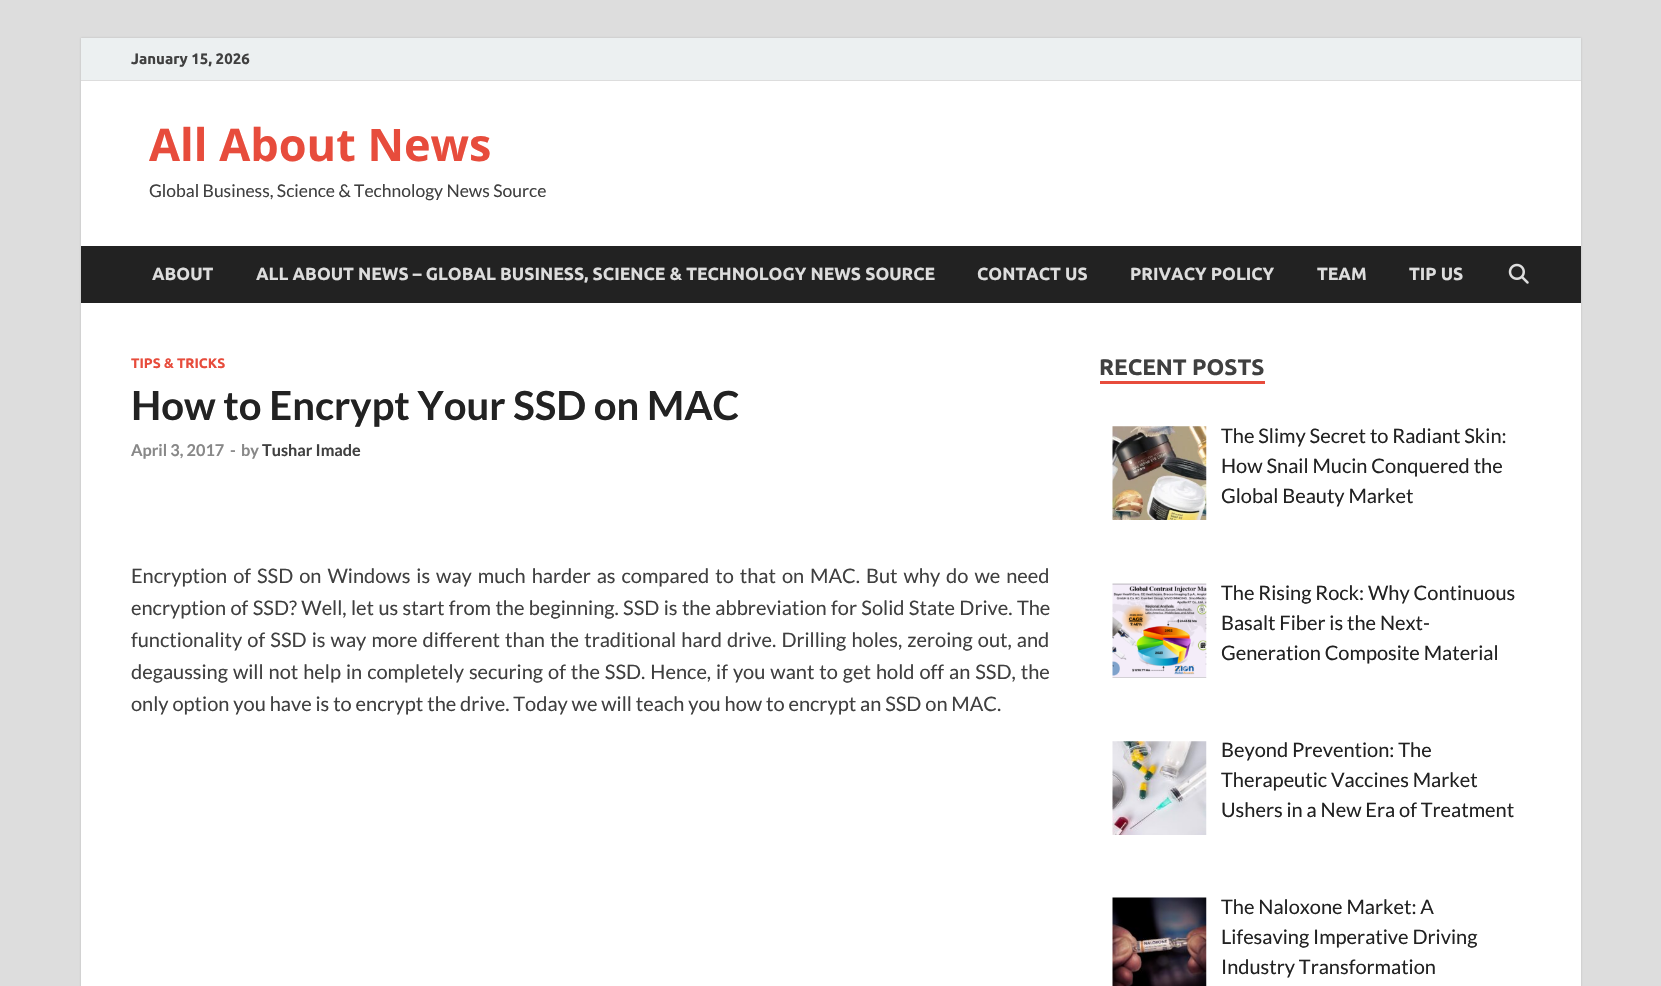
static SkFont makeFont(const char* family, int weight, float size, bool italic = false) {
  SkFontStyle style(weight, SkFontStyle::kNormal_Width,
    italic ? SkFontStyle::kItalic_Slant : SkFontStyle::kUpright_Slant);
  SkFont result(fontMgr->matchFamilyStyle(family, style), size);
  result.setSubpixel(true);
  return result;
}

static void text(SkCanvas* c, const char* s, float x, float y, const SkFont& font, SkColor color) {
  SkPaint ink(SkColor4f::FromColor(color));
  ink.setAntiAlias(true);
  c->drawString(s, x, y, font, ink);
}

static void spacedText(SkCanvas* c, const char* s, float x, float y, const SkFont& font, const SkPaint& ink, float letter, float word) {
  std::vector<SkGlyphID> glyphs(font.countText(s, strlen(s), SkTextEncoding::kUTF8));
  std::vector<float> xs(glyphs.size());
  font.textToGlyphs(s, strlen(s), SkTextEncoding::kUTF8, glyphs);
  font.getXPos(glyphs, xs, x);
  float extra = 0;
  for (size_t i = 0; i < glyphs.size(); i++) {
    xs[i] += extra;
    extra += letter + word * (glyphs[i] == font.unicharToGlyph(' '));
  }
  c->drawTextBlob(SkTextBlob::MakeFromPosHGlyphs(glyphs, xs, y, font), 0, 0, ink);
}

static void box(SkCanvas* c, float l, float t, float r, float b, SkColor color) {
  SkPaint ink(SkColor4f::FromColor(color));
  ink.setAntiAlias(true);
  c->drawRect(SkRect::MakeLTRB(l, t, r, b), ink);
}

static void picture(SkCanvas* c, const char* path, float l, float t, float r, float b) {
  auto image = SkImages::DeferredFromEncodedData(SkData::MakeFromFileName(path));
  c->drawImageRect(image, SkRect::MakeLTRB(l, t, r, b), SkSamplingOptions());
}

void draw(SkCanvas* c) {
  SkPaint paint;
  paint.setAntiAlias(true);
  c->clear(0xffdddddd);
  paint.setColor(0xffbbbbbb);
  paint.setMaskFilter(SkMaskFilter::MakeBlur(kNormal_SkBlurStyle, 1));
  c->drawRect(SkRect::MakeLTRB(81, 38, 1581, 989), paint);
  paint.setMaskFilter(nullptr);
  box(c, 81, 81, 1581, 986, 0xffffffff);
  box(c, 81, 38, 1581, 80, 0xffecf0f1);
  box(c, 81, 80, 1581, 81, 0xffdddddd);
  SkFont face1 = makeFont("Ubuntu", 700, 15);
  text(c, "January 15, 2026", 131, 64, face1, 0xff404040);
  SkFont face2 = makeFont("Open Sans", 700, 45);
  text(c, "All About News", 149, 161, face2, 0xffe74c3c);
  SkFont face3 = makeFont("Lato", 400, 17.5f);
  text(c, "Global Business, Science & Technology News Source", 149, 197, face3, 0xff404040);
  box(c, 81, 246, 1581, 303, 0xff222222);
  SkFont face4 = makeFont("Ubuntu", 700, 17.5f);
  text(c, "ABOUT", 152, 280, face4, 0xffdddddd);
  text(c, "ALL ABOUT NEWS – GLOBAL BUSINESS, SCIENCE & TECHNOLOGY NEWS SOURCE", 256, 280, face4, 0xffdddddd);
  text(c, "CONTACT US", 977, 280, face4, 0xffdddddd);
  text(c, "PRIVACY POLICY", 1130, 280, face4, 0xffdddddd);
  text(c, "TEAM", 1317, 280, face4, 0xffdddddd);
  text(c, "TIP US", 1409, 280, face4, 0xffdddddd);
  picture(c, "img_01.png", 1508, 263, 1529, 284);
  SkFont face5 = makeFont("Ubuntu", 700, 13.75f);
  text(c, "TIPS & TRICKS", 131, 368, face5, 0xffe74c3c);
  SkFont face6 = makeFont("Lato", 700, 40);
  text(c, "How to Encrypt Your SSD on MAC", 131, 420, face6, 0xff222222);
  SkFont face7 = makeFont("Lato", 700, 16.25f);
  text(c, "April 3, 2017", 131, 456, face7, 0xff888888);
  text(c, "-", 230, 456, face7, 0xff888888);
  text(c, "by", 241, 456, face7, 0xff888888);
  text(c, "Tushar Imade", 262, 456, face7, 0xff404040);
  SkFont face8 = makeFont("Lato", 400, 20);
  paint.setColor(0xff404040);
  spacedText(c, "Encryption of SSD on Windows is way much harder as compared to that on MAC. But why do we need", 131, 583, face8, paint, 0, 2.1f);
  spacedText(c, "encryption of SSD? Well, let us start from the beginning. SSD is the abbreviation for Solid State Drive. The", 131, 615, face8, paint, 0, 0.5f);
  spacedText(c, "functionality of SSD is way more different than the traditional hard drive. Drilling holes, zeroing out, and", 131, 647, face8, paint, 0, 1.25f);
  spacedText(c, "degaussing will not help in completely securing of the SSD. Hence, if you want to get hold off an SSD, the", 131, 679, face8, paint, 0, 1.1f);
  text(c, "only option you have is to encrypt the drive. Today we will teach you how to encrypt an SSD on MAC.", 131, 711, face8, 0xff404040);
  box(c, 1100, 381, 1265, 384, 0xffe74c3c);
  SkFont face9 = makeFont("Ubuntu", 700, 22.5f);
  text(c, "RECENT POSTS", 1099, 375, face9, 0xff404040);
  picture(c, "img_02.png", 1112, 426, 1207, 520);
  text(c, "The Slimy Secret to Radiant Skin:", 1221, 443, face8, 0xff222222);
  text(c, "How Snail Mucin Conquered the", 1221, 473, face8, 0xff222222);
  text(c, "Global Beauty Market", 1221, 503, face8, 0xff222222);
  picture(c, "img_03.png", 1112, 583, 1207, 678);
  text(c, "The Rising Rock: Why Continuous", 1221, 600, face8, 0xff222222);
  text(c, "Basalt Fiber is the Next-", 1221, 630, face8, 0xff222222);
  text(c, "Generation Composite Material", 1221, 660, face8, 0xff222222);
  picture(c, "img_04.png", 1112, 741, 1207, 835);
  text(c, "Beyond Prevention: The", 1221, 757, face8, 0xff222222);
  text(c, "Therapeutic Vaccines Market", 1221, 787, face8, 0xff222222);
  text(c, "Ushers in a New Era of Treatment", 1221, 817, face8, 0xff222222);
  picture(c, "img_05.png", 1112, 897, 1207, 986);
  text(c, "The Naloxone Market: A", 1221, 914, face8, 0xff222222);
  text(c, "Lifesaving Imperative Driving", 1221, 944, face8, 0xff222222);
  text(c, "Industry Transformation", 1221, 974, face8, 0xff222222);
}
